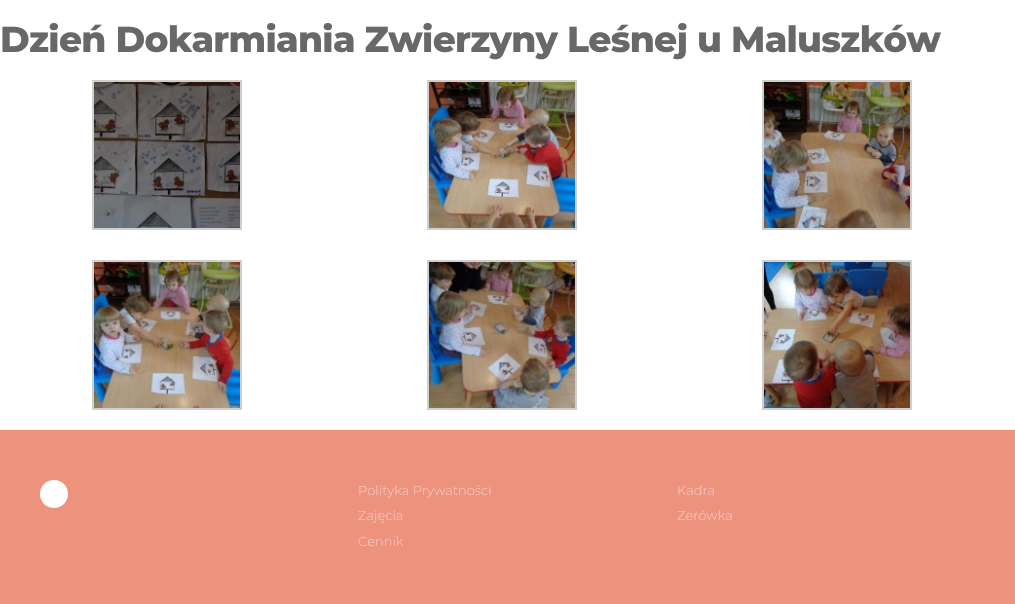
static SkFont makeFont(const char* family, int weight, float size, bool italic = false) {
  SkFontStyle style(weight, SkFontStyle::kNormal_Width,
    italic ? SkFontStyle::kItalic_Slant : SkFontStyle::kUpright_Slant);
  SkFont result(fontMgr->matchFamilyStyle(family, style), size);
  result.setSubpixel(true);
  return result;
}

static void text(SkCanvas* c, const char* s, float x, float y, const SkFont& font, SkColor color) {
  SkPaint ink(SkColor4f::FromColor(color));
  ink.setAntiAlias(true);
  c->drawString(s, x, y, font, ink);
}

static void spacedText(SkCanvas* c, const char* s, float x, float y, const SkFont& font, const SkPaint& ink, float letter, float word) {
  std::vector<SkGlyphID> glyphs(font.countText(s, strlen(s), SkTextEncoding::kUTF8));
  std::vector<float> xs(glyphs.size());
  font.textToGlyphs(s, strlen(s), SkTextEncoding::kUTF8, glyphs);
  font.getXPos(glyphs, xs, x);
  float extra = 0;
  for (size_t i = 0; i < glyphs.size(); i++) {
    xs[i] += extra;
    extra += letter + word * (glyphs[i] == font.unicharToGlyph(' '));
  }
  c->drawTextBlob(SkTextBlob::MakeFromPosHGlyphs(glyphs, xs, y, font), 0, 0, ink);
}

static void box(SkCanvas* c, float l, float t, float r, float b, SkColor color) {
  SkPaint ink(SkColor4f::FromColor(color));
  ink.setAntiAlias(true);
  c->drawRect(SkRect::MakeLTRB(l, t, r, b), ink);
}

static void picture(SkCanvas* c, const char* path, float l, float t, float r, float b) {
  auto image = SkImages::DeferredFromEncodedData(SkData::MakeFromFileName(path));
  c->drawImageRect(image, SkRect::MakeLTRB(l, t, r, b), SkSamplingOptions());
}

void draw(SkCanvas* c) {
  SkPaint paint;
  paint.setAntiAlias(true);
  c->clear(0xffffffff);
  SkFont face1 = makeFont("Montserrat", 800, 36);
  paint.setColor(0xff686868);
  spacedText(c, "Dzień Dokarmiania Zwierzyny Leśnej u Maluszków", 0, 52, face1, paint, -0.7f, 0);
  paint.setStyle(SkPaint::kStroke_Style);
  paint.setStrokeWidth(2);
  paint.setColor(0xffcfcfcf);
  c->drawRect(SkRect::MakeLTRB(93, 81, 241, 229), paint);
  picture(c, "img_01.png", 94, 82, 240, 228);
  c->drawRect(SkRect::MakeLTRB(428, 81, 576, 229), paint);
  picture(c, "img_02.png", 429, 82, 575, 228);
  c->drawRect(SkRect::MakeLTRB(763, 81, 911, 229), paint);
  picture(c, "img_03.png", 764, 82, 910, 228);
  c->drawRect(SkRect::MakeLTRB(93, 261, 241, 409), paint);
  picture(c, "img_04.png", 94, 262, 240, 408);
  c->drawRect(SkRect::MakeLTRB(428, 261, 576, 409), paint);
  picture(c, "img_05.png", 429, 262, 575, 408);
  c->drawRect(SkRect::MakeLTRB(763, 261, 911, 409), paint);
  picture(c, "img_06.png", 764, 262, 910, 408);
  box(c, 0, 430, 1015, 604, 0xffed927d);
  paint.setStyle(SkPaint::kFill_Style);
  paint.setColor(0xffffffff);
  c->drawCircle(54, 494, 14, paint);
  SkFont face2 = makeFont("Montserrat", 300, 13);
  text(c, "Polityka Prywatności", 358, 495, face2, 0xfff6c9be);
  text(c, "Zajęcia", 358, 520, face2, 0xfff6c9be);
  text(c, "Cennik", 358, 546, face2, 0xfff6c9be);
  text(c, "Kadra", 677, 495, face2, 0xfff6c9be);
  text(c, "Zerówka", 677, 520, face2, 0xfff6c9be);
}
